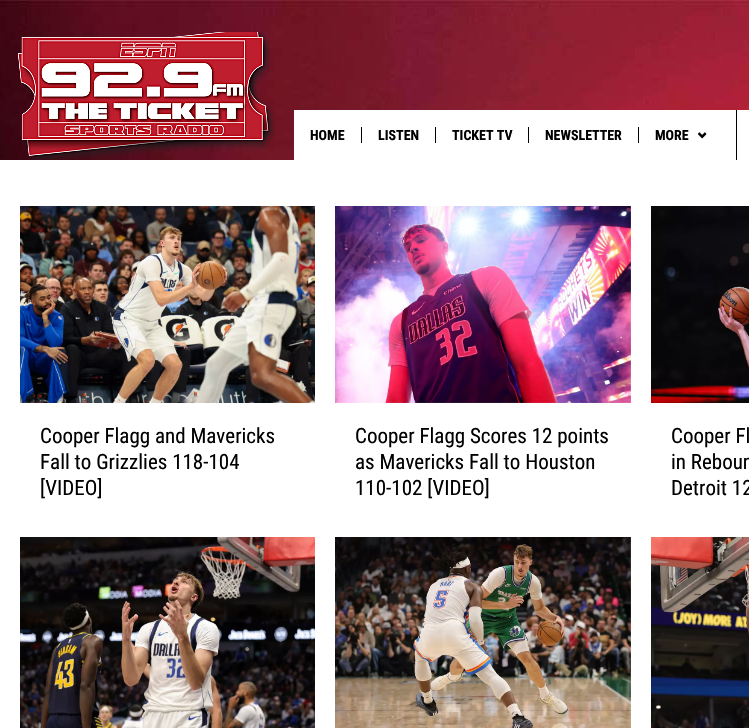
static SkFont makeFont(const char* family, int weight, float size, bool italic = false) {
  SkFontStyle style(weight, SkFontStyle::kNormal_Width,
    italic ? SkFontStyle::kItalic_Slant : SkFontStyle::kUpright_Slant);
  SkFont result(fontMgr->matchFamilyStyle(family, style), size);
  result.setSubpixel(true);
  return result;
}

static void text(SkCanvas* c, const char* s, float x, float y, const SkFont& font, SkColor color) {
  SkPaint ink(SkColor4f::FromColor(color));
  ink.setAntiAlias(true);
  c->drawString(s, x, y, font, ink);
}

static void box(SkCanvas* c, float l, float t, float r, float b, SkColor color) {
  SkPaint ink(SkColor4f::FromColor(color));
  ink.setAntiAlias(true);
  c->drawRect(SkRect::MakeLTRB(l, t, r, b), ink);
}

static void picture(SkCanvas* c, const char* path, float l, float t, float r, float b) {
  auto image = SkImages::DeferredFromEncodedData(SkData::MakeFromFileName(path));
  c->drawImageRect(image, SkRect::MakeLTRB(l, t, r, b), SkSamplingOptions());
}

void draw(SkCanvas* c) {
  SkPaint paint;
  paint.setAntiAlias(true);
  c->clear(0xffffffff);
  picture(c, "img_01.png", 0, 0, 749, 160);
  picture(c, "img_02.png", 18, 32, 276, 160);
  box(c, 294, 110, 736, 160, 0xffffffff);
  SkFont face1 = makeFont("Roboto Condensed", 700, 14);
  text(c, "HOME", 310, 140, face1, 0xff000000);
  box(c, 361, 127, 362, 143, 0xff000000);
  text(c, "LISTEN", 378, 140, face1, 0xff000000);
  box(c, 435, 127, 436, 143, 0xff000000);
  text(c, "TICKET TV", 452, 140, face1, 0xff000000);
  box(c, 528, 127, 529, 143, 0xff000000);
  text(c, "NEWSLETTER", 545, 140, face1, 0xff000000);
  box(c, 638, 127, 639, 143, 0xff000000);
  text(c, "MORE", 655, 140, face1, 0xff000000);
  picture(c, "img_03.png", 698, 132, 707, 139);
  box(c, 737, 110, 749, 160, 0xffffffff);
  box(c, 736, 110, 737, 160, 0xff000000);
  picture(c, "img_04.png", 20, 206, 315, 403);
  SkFont face2 = makeFont("Roboto Condensed", 400, 21);
  text(c, "Cooper Flagg and Mavericks", 40, 443, face2, 0xff000000);
  text(c, "Fall to Grizzlies 118-104", 40, 469, face2, 0xff000000);
  text(c, "[VIDEO]", 40, 495, face2, 0xff000000);
  picture(c, "img_05.png", 335, 206, 631, 403);
  text(c, "Cooper Flagg Scores 12 points", 355, 443, face2, 0xff000000);
  text(c, "as Mavericks Fall to Houston", 355, 469, face2, 0xff000000);
  text(c, "110-102 [VIDEO]", 355, 495, face2, 0xff000000);
  picture(c, "img_06.png", 651, 206, 749, 403);
  text(c, "Cooper Fl", 671, 443, face2, 0xff000000);
  text(c, "in Reboun", 671, 469, face2, 0xff000000);
  text(c, "Detroit 12", 671, 495, face2, 0xff000000);
  picture(c, "img_07.png", 20, 537, 315, 728);
  picture(c, "img_08.png", 335, 537, 631, 728);
  picture(c, "img_09.png", 651, 537, 749, 728);
}
